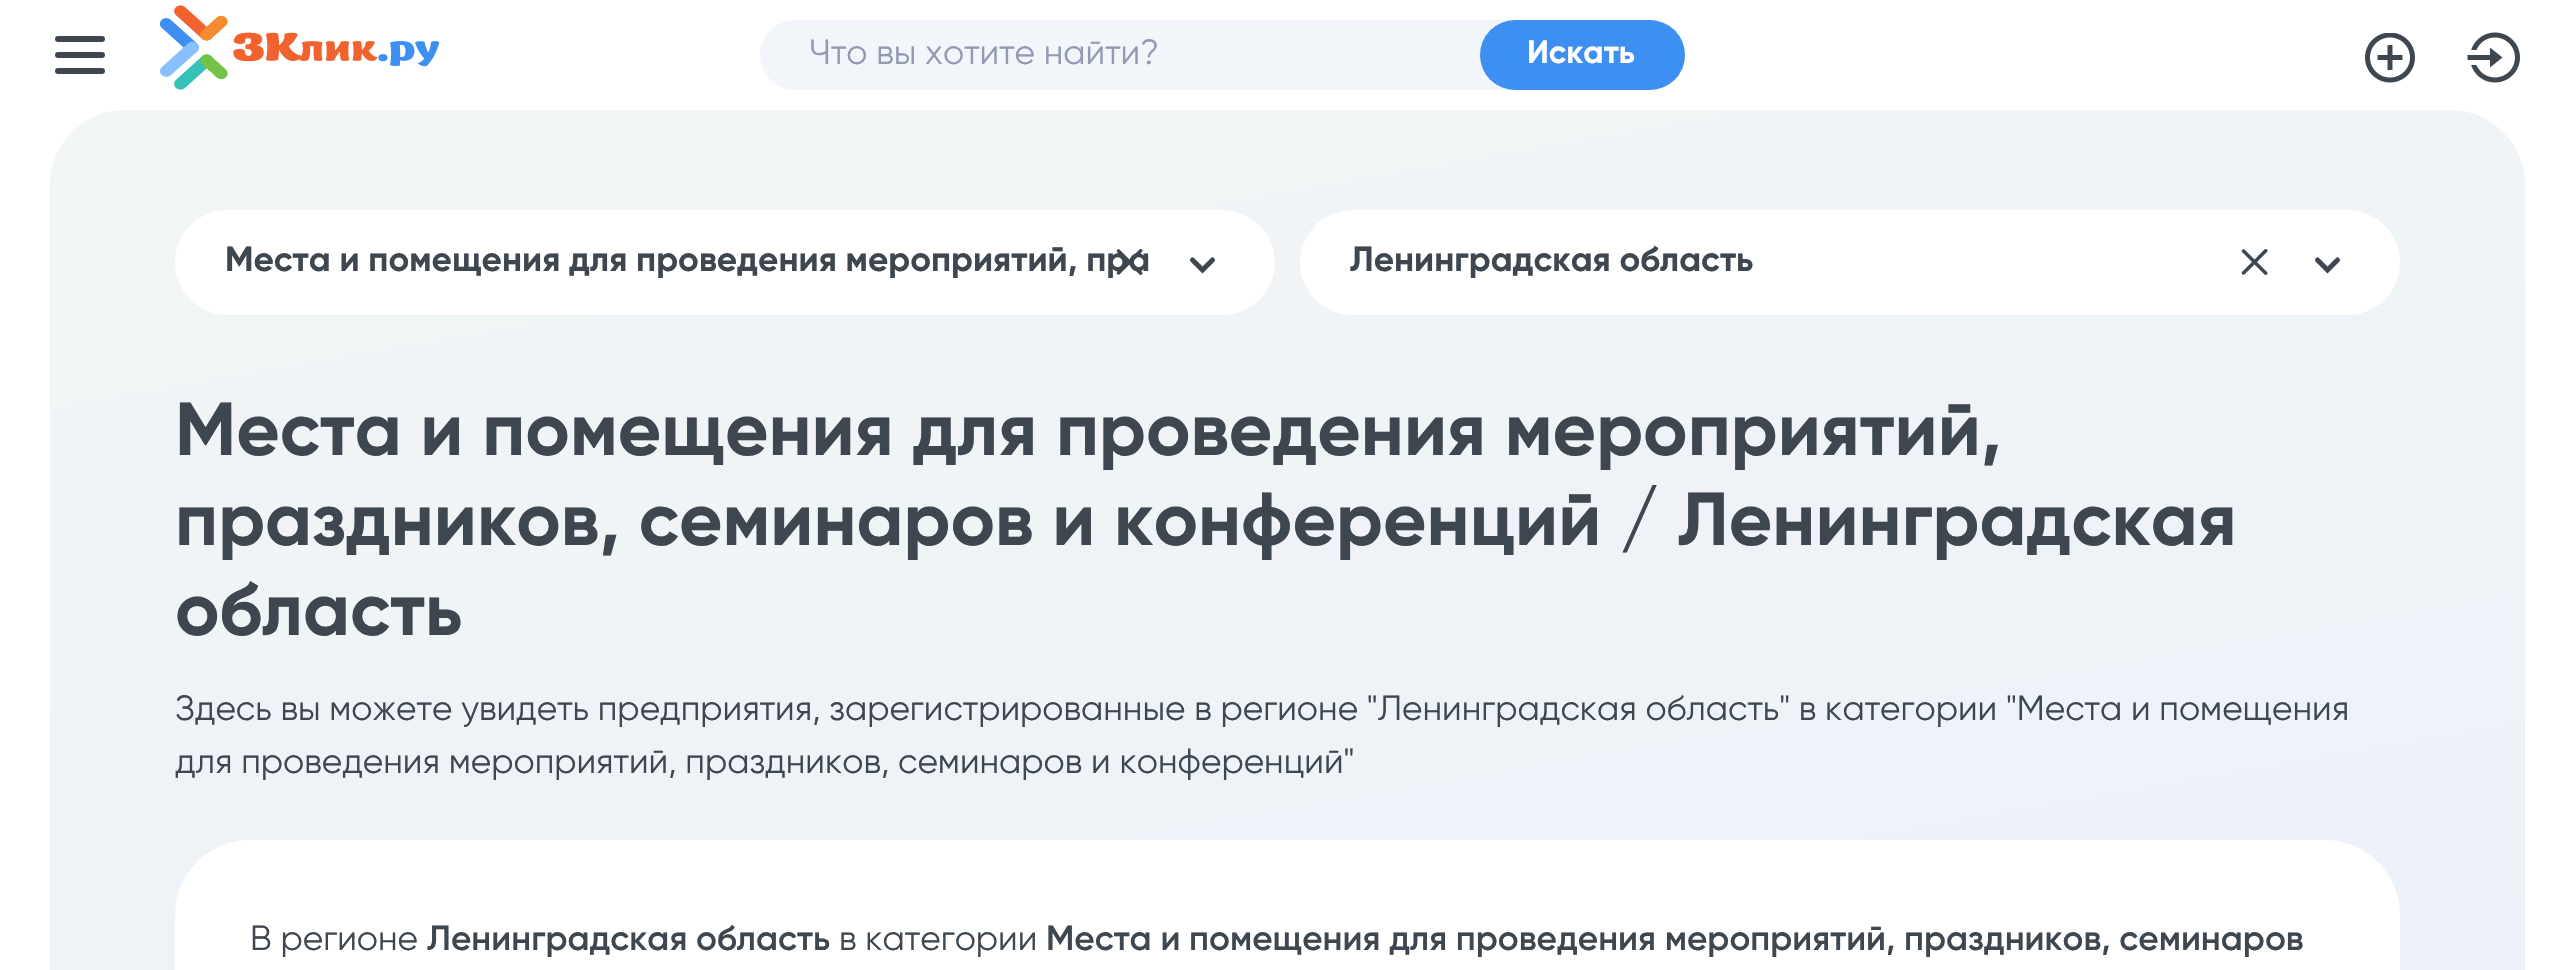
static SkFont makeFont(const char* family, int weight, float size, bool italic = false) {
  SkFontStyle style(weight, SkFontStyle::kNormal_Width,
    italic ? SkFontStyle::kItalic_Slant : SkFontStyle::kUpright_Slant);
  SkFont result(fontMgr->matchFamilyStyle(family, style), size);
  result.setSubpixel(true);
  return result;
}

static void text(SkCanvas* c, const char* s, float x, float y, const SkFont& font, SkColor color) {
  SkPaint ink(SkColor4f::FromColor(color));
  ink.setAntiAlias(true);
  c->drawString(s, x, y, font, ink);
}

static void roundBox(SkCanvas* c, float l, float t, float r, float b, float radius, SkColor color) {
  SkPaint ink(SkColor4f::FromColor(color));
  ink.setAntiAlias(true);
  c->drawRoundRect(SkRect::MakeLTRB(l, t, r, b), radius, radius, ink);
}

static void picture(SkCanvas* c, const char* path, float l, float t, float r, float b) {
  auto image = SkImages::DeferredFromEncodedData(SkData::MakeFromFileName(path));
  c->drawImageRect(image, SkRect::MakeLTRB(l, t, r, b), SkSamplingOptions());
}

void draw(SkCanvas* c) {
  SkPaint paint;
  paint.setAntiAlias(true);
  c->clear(0xffffffff);
  roundBox(c, 55, 36, 105, 42, 3, 0xff3e474f);
  roundBox(c, 55, 52, 105, 58, 3, 0xff3e474f);
  roundBox(c, 55, 68, 105, 74, 3, 0xff3e474f);
  picture(c, "img_01.png", 160, 5, 440, 90);
  roundBox(c, 760, 20, 1685, 90, 35, 0xfff2f5fa);
  SkFont face1 = makeFont("Gilroy", 400, 35);
  text(c, "Что вы хотите найти?", 809, 64, face1, 0xff919ab1);
  roundBox(c, 1480, 20, 1685, 90, 35, 0xff3d90f1);
  SkFont face2 = makeFont("Gilroy", 700, 32.5f);
  text(c, "Искать", 1527, 63, face2, 0xffffffff);
  picture(c, "img_02.png", 2365, 33, 2415, 83);
  picture(c, "img_03.png", 2467, 32, 2520, 83);
  {
    const SkColor colors[] = {0xfff1f5f6, 0xffebf0fb};
    const float stops[] = {0.08f, 0.93f};
    const SkPoint ends[] = {{1134, -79}, {1441, 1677}};
    paint.setShader(SkGradientShader::MakeLinear(ends, colors, stops, 2, SkTileMode::kClamp));
    paint.setAlpha(255);
  }
  c->drawRoundRect(SkRect::MakeLTRB(50, 110, 2525, 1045), 75, 75, paint);
  roundBox(c, 175, 210, 1275, 315, 52.5f, 0xffffffff);
  paint.setStyle(SkPaint::kStroke_Style);
  paint.setStrokeWidth(5);
  paint.setStrokeCap(SkPaint::kRound_Cap);
  paint.setShader(nullptr);
  paint.setColor(0xff3e474f);
  c->drawPath(SkPathBuilder().moveTo(1192.5f, 260).lineTo(1202.5f, 270).lineTo(1212.5f, 260).detach(), paint);
  SkFont face3 = makeFont("Gilroy", 700, 35);
  text(c, "Места и помещения для проведения мероприятий, пра", 225, 271, face3, 0xff3e474f);
  picture(c, "img_04.png", 1116, 249, 1143, 275);
  roundBox(c, 1300, 210, 2400, 315, 52.5f, 0xffffffff);
  c->drawPath(SkPathBuilder().moveTo(2317.5f, 260).lineTo(2327.5f, 270).lineTo(2337.5f, 260).detach(), paint);
  text(c, "Ленинградская область", 1350, 271, face3, 0xff3e474f);
  picture(c, "img_05.png", 2241, 249, 2268, 275);
  SkFont face4 = makeFont("Gilroy", 700, 75);
  text(c, "Места и помещения для проведения мероприятий,", 175, 455, face4, 0xff3e474f);
  text(c, "праздников, семинаров и конференций / Ленинградская", 175, 545, face4, 0xff3e474f);
  text(c, "область", 175, 635, face4, 0xff3e474f);
  text(c, "Здесь вы можете увидеть предприятия, зарегистрированные в регионе \"Ленинградская область\" в категории \"Места и помещения", 175, 720, face1, 0xff3e474f);
  text(c, "для проведения мероприятий, праздников, семинаров и конференций\"", 175, 773, face1, 0xff3e474f);
  roundBox(c, 175, 840, 2400, 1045, 75, 0xffffffff);
  text(c, "В регионе", 250, 950, face1, 0xff3e474f);
  SkFont face5 = makeFont("Gilroy", 600, 35);
  text(c, "Ленинградская область", 427, 950, face5, 0xff3e474f);
  text(c, "в категории", 839, 950, face1, 0xff3e474f);
  text(c, "Места и помещения для проведения мероприятий, праздников, семинаров", 1046, 950, face5, 0xff3e474f);
}
